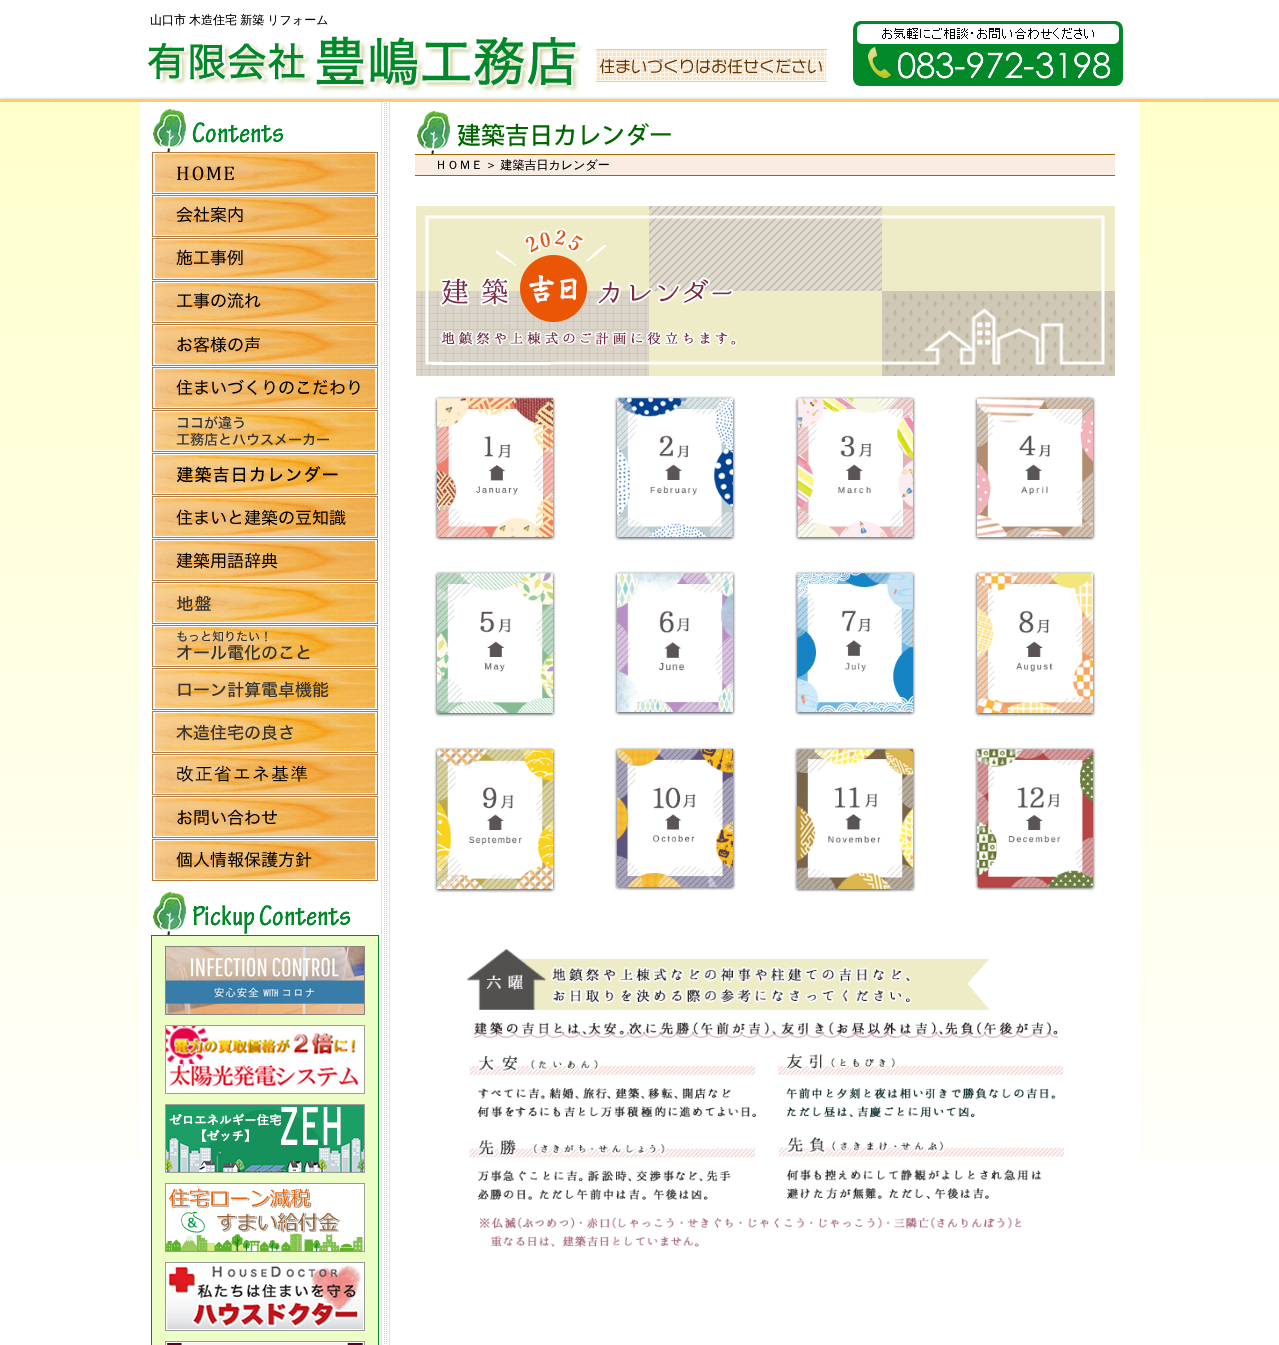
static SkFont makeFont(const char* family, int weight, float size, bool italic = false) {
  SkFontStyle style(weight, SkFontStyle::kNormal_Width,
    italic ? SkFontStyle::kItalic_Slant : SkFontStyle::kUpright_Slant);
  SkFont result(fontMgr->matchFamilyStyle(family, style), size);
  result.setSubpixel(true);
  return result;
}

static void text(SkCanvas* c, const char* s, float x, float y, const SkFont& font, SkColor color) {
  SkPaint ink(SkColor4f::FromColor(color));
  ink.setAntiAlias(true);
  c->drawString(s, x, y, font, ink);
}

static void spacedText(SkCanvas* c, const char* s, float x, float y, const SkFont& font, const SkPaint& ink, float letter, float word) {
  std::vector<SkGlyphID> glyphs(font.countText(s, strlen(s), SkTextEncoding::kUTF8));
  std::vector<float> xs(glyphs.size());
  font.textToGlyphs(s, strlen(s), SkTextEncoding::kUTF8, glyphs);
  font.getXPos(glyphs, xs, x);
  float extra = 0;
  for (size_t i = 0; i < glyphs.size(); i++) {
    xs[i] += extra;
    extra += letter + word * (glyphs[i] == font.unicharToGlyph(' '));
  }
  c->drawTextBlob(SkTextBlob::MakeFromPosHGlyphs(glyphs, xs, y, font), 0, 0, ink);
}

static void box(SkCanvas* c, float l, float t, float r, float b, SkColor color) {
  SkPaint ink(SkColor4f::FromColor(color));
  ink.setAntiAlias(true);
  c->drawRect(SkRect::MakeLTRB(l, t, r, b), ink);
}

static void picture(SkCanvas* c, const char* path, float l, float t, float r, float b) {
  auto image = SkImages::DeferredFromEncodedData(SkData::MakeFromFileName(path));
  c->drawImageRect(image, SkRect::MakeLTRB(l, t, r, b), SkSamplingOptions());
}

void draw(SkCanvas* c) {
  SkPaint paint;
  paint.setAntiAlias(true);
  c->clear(0xffffffff);
  picture(c, "img_01.png", 0, 97, 1279, 1161);
  picture(c, "img_02.png", 148, 21, 1123, 99);
  SkFont face1 = makeFont("WenQuanYi Zen Hei", 500, 12);
  paint.setColor(0xff000000);
  spacedText(c, "山口市 木造住宅 新築 リフォーム", 150, 24, face1, paint, 0, -0.5f);
  box(c, 140, 102, 1140, 1161, 0xffffffff);
  picture(c, "img_03.png", 381, 102, 390, 1345);
  picture(c, "img_04.png", 153, 109, 284, 152);
  picture(c, "img_05.png", 152, 152, 378, 194);
  picture(c, "img_06.png", 152, 195, 378, 237);
  picture(c, "img_07.png", 152, 238, 378, 280);
  picture(c, "img_08.png", 152, 281, 378, 323);
  picture(c, "img_09.png", 152, 324, 378, 366);
  picture(c, "img_10.png", 152, 367, 378, 409);
  picture(c, "img_11.png", 152, 410, 378, 452);
  picture(c, "img_12.png", 152, 453, 378, 495);
  picture(c, "img_13.png", 152, 496, 378, 538);
  picture(c, "img_14.png", 152, 539, 378, 581);
  picture(c, "img_15.png", 152, 582, 378, 624);
  picture(c, "img_16.png", 152, 625, 378, 667);
  picture(c, "img_17.png", 152, 668, 378, 710);
  picture(c, "img_18.png", 152, 711, 378, 753);
  picture(c, "img_19.png", 152, 754, 378, 796);
  picture(c, "img_20.png", 152, 796, 378, 838);
  picture(c, "img_21.png", 152, 839, 378, 881);
  picture(c, "img_22.png", 153, 892, 351, 935);
  paint.setColor(0xffecfdc6);
  c->drawRect(SkRect::MakeLTRB(151.5f, 935.5f, 378.5f, 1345.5f), paint);
  paint.setStyle(SkPaint::kStroke_Style);
  paint.setStrokeWidth(1);
  paint.setColor(0xff018929);
  c->drawRect(SkRect::MakeLTRB(151.5f, 935.5f, 378.5f, 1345.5f), paint);
  picture(c, "img_23.png", 165, 946, 365, 1015);
  picture(c, "img_24.png", 165, 1025, 365, 1094);
  picture(c, "img_25.png", 165, 1104, 365, 1173);
  picture(c, "img_26.png", 165, 1183, 365, 1252);
  picture(c, "img_27.png", 165, 1262, 365, 1331);
  picture(c, "img_28.png", 165, 1341, 365, 1345);
  picture(c, "img_29.png", 415, 111, 1115, 155);
  box(c, 415, 155, 1115, 175, 0xfff9ece3);
  box(c, 415, 175, 1115, 176, 0xff996600);
  text(c, "ＨＯＭＥ", 435, 169, face1, 0xff000000);
  text(c, "＞ 建築吉日カレンダー", 485, 169, face1, 0xff000000);
  picture(c, "img_30.png", 416, 206, 1115, 1247);
}
